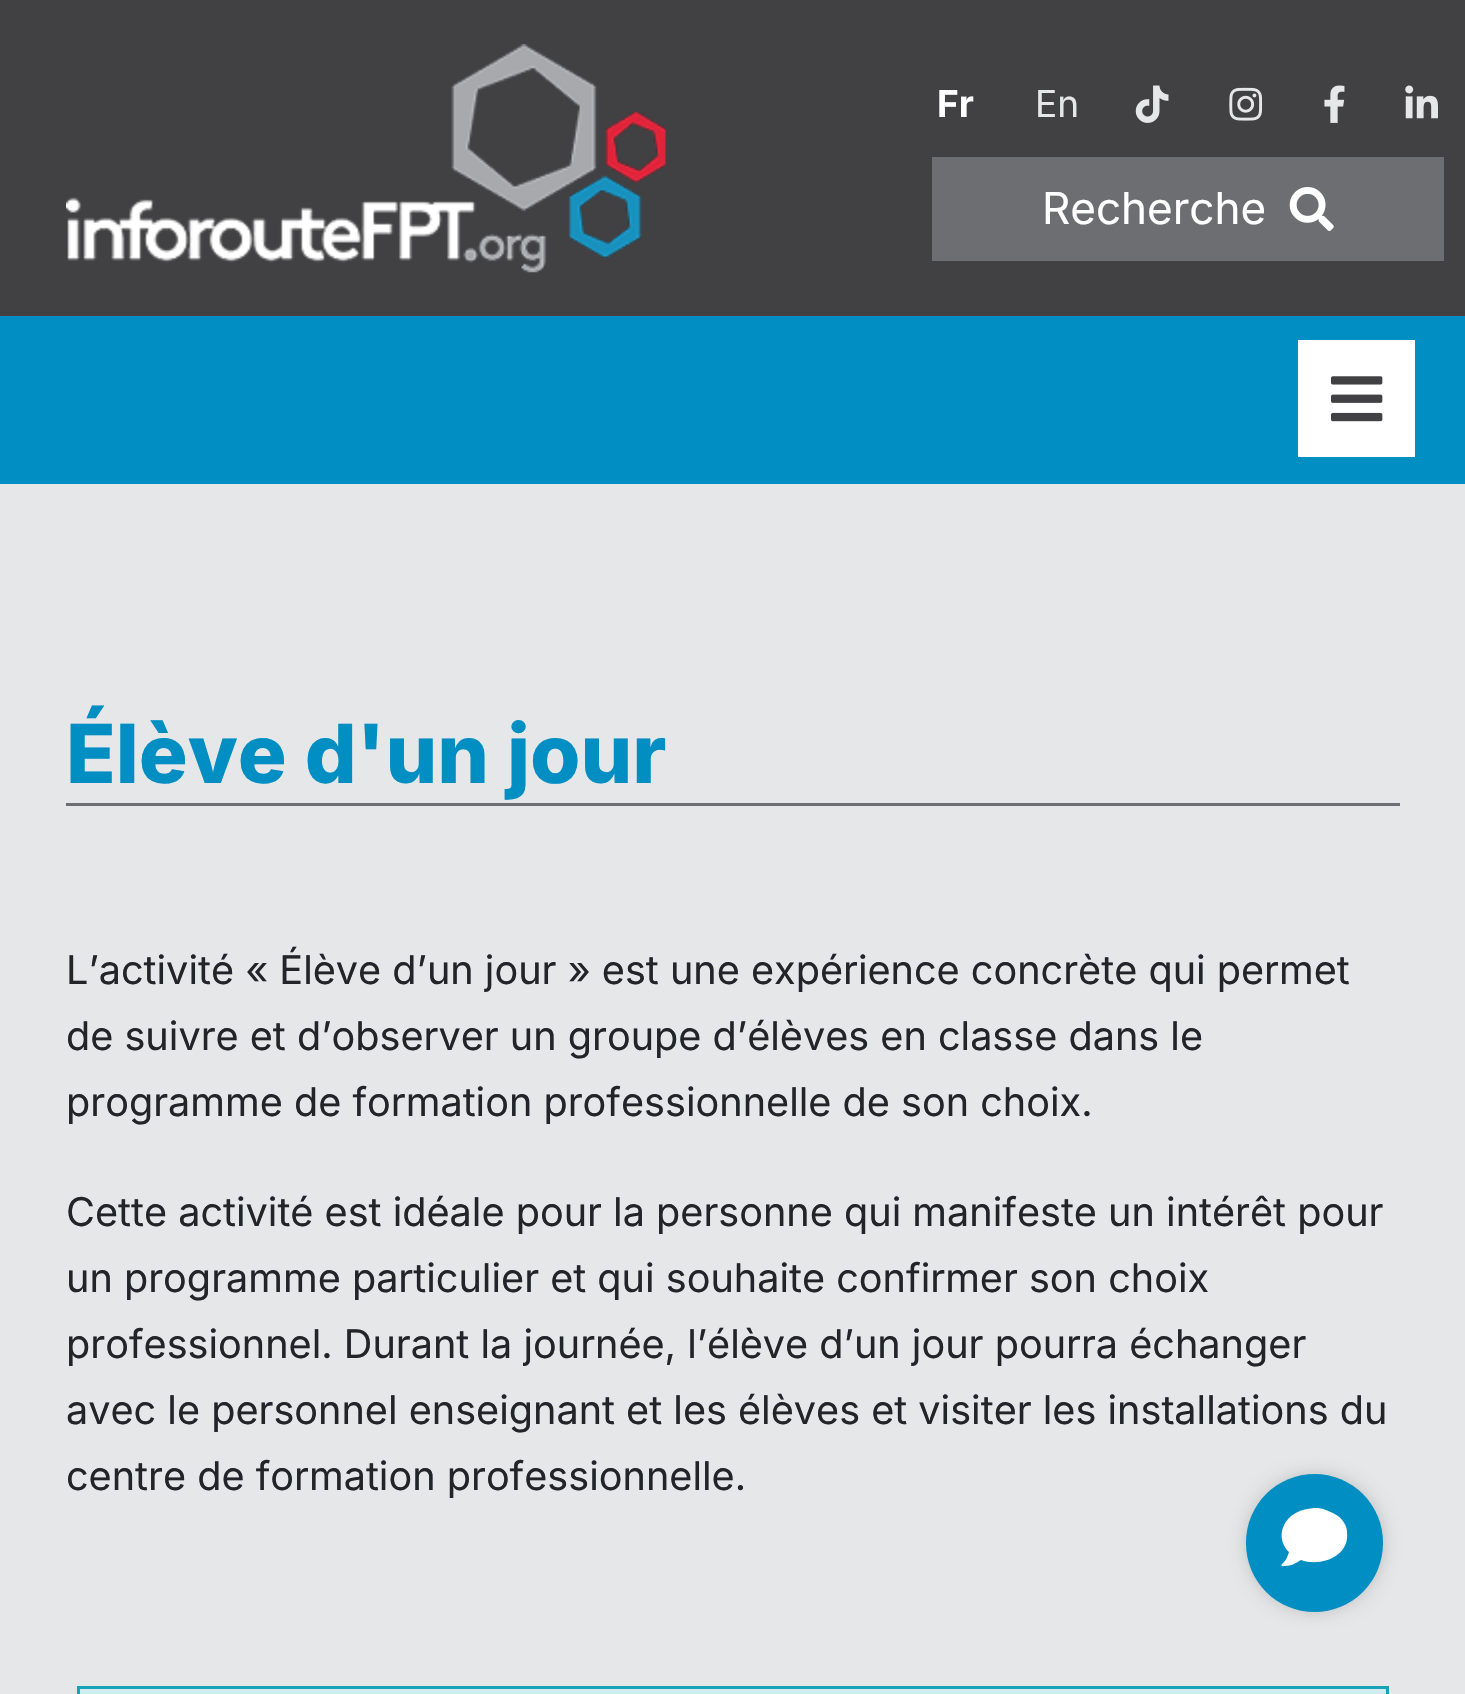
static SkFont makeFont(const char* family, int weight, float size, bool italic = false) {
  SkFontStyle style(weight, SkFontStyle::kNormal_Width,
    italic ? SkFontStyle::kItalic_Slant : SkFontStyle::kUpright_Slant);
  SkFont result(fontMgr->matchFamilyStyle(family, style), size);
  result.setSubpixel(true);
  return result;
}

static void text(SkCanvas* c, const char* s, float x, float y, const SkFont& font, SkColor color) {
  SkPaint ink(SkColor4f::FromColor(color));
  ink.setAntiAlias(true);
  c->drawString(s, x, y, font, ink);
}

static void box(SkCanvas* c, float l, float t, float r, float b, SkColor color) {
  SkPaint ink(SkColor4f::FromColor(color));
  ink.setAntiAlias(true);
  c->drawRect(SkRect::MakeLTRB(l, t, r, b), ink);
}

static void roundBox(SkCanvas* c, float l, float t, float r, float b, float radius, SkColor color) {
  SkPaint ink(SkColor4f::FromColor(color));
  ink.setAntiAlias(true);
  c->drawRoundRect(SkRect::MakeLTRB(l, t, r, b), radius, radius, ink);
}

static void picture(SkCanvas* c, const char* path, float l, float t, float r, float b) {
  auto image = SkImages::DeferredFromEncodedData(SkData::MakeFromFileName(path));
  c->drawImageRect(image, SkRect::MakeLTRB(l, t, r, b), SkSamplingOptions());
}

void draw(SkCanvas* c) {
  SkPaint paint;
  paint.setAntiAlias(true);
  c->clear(0xff414042);
  picture(c, "img_01.png", 66, 44, 666, 273);
  SkFont face1 = makeFont("Inter", 700, 37);
  text(c, "Fr", 937, 117, face1, 0xffffffff);
  SkFont face2 = makeFont("Inter", 400, 37);
  text(c, "En", 1035, 117, face2, 0xffe6e7e8);
  picture(c, "img_02.png", 1135, 85, 1169, 123);
  picture(c, "img_03.png", 1229, 87, 1263, 121);
  picture(c, "img_04.png", 1324, 85, 1345, 123);
  picture(c, "img_05.png", 1405, 85, 1438, 119);
  box(c, 932, 157, 1444, 261, 0xff6d6e71);
  SkFont face3 = makeFont("Inter", 400, 44);
  text(c, "Recherche", 1042, 224, face3, 0xffffffff);
  picture(c, "img_06.png", 1289, 187, 1334, 231);
  box(c, 0, 316, 1465, 484, 0xff008ec3);
  box(c, 1298, 340, 1415, 457, 0xffffffff);
  picture(c, "img_07.png", 1331, 376, 1383, 422);
  box(c, 0, 484, 1465, 1694, 0xffe6e7e8);
  box(c, 66, 803, 1400, 806, 0xff6d6e71);
  SkFont face4 = makeFont("Inter", 800, 81.5f);
  text(c, "Élève d'un jour", 66, 783, face4, 0xff008ec3);
  SkFont face5 = makeFont("Inter", 400, 39.6f);
  text(c, "L’activité « Élève d’un jour » est une expérience concrète qui permet", 66, 984, face5, 0xff212529);
  text(c, "de suivre et d’observer un groupe d’élèves en classe dans le", 66, 1050, face5, 0xff212529);
  text(c, "programme de formation professionnelle de son choix.", 66, 1116, face5, 0xff212529);
  text(c, "Cette activité est idéale pour la personne qui manifeste un intérêt pour", 66, 1226, face5, 0xff212529);
  text(c, "un programme particulier et qui souhaite confirmer son choix", 66, 1292, face5, 0xff212529);
  text(c, "professionnel. Durant la journée, l’élève d’un jour pourra échanger", 66, 1358, face5, 0xff212529);
  text(c, "avec le personnel enseignant et les élèves et visiter les installations du", 66, 1424, face5, 0xff212529);
  text(c, "centre de formation professionnelle.", 66, 1490, face5, 0xff212529);
  paint.setColor(0xffd1ecf1);
  c->drawRect(SkRect::MakeLTRB(78.5f, 1687.5f, 1387.5f, 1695.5f), paint);
  paint.setStyle(SkPaint::kStroke_Style);
  paint.setStrokeWidth(3);
  paint.setColor(0xff17a2b8);
  c->drawRect(SkRect::MakeLTRB(78.5f, 1687.5f, 1387.5f, 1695.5f), paint);
  paint.setStyle(SkPaint::kFill_Style);
  paint.setColor(0xff4d4d4d);
  paint.setMaskFilter(SkMaskFilter::MakeBlur(kNormal_SkBlurStyle, 14));
  c->drawRoundRect(SkRect::MakeLTRB(1260, 1488, 1370, 1598), 55, 55, paint);
  paint.setMaskFilter(nullptr);
  roundBox(c, 1246, 1474, 1383, 1612, 68.5f, 0xff008ec3);
  paint.setColor(0xffffffff);
  c->drawPath(SkPathBuilder().moveTo(1291, 1516).cubicTo(1299, 1510, 1308, 1508, 1318, 1508).cubicTo(1325, 1509, 1332, 1512, 1338, 1516).cubicTo(1343, 1520, 1347, 1526, 1347, 1532).cubicTo(1350, 1557, 1320, 1567, 1301, 1560).cubicTo(1296, 1563, 1291, 1566, 1285, 1566).cubicTo(1278, 1567, 1283, 1563, 1285, 1561).cubicTo(1287, 1558, 1288, 1555, 1289, 1552).cubicTo(1278, 1541, 1280, 1526, 1291, 1516).close().detach(), paint);
}
